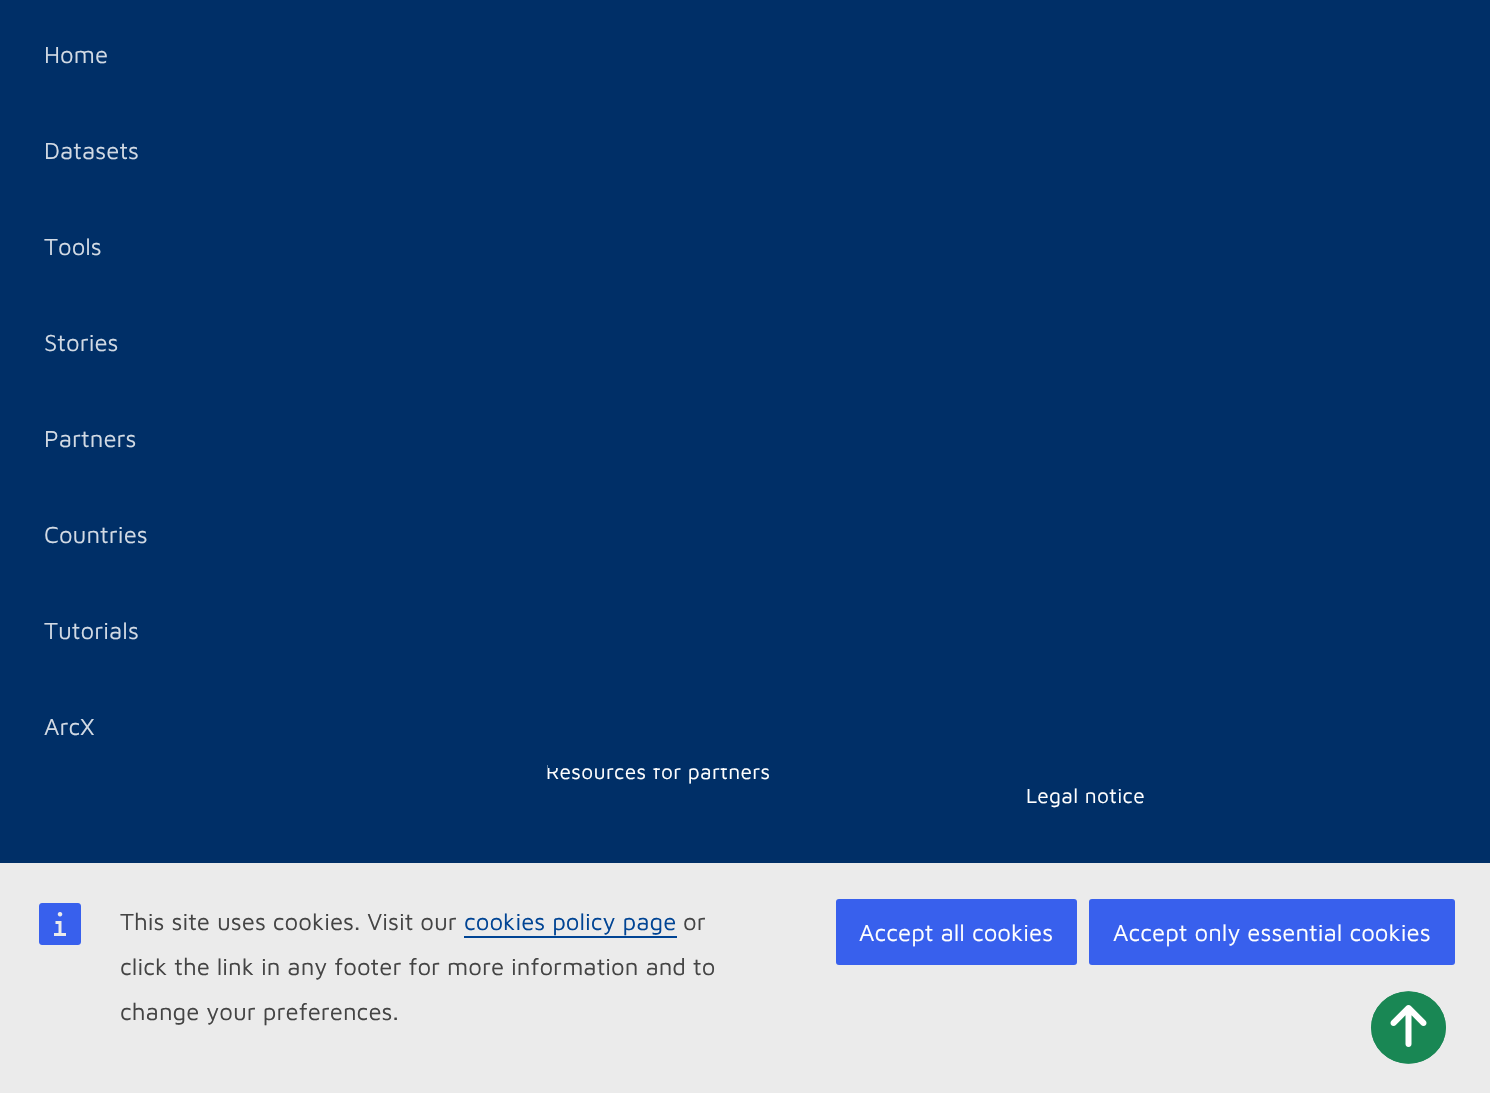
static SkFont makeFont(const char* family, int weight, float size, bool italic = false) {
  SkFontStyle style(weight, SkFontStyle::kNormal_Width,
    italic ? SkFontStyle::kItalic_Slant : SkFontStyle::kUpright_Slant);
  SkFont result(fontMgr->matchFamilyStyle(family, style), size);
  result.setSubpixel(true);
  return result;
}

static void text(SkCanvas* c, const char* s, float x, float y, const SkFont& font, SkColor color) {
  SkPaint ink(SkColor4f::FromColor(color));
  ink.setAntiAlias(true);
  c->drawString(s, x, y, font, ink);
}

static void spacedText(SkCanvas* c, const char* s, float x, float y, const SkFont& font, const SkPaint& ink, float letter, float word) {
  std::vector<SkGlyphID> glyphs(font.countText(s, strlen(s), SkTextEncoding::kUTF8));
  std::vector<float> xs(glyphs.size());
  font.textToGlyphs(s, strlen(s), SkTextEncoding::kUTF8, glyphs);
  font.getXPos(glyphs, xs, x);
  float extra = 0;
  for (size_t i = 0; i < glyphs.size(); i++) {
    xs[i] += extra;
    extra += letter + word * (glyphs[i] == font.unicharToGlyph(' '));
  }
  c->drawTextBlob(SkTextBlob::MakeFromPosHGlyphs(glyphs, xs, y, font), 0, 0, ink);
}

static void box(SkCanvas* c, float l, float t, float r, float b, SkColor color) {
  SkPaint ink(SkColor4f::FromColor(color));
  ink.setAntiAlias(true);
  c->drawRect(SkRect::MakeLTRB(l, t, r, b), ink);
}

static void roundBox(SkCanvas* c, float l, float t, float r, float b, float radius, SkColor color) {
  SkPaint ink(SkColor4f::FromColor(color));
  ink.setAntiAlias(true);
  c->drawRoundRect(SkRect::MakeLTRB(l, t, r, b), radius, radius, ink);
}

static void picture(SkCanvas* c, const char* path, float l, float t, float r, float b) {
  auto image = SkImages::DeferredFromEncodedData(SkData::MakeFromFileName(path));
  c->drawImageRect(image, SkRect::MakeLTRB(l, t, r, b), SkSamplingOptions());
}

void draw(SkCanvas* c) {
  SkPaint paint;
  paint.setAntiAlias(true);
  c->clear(0xff002f67);
  SkFont face1 = makeFont("Maven Pro", 400, 21);
  paint.setColor(0xffffffff);
  spacedText(c, "Resources for partners", 546, 779, face1, paint, 0.3f, 0);
  box(c, 548, 764, 725, 768, 0xff002f67);
  SkFont face2 = makeFont("Maven Pro", 400, 24);
  text(c, "Home", 44, 63, face2, 0xffd2dae4);
  text(c, "Datasets", 44, 159, face2, 0xffd2dae4);
  text(c, "Tools", 44, 255, face2, 0xffd2dae4);
  text(c, "Stories", 44, 351, face2, 0xffd2dae4);
  text(c, "Partners", 44, 447, face2, 0xffd2dae4);
  text(c, "Countries", 44, 543, face2, 0xffd2dae4);
  text(c, "Tutorials", 44, 639, face2, 0xffd2dae4);
  text(c, "ArcX", 44, 735, face2, 0xffd2dae4);
  spacedText(c, "Legal notice", 1026, 803, face1, paint, 0.3f, 0);
  box(c, 0, 863, 1490, 1093, 0xffebebeb);
  picture(c, "img_01.png", 39, 903, 81, 945);
  text(c, "This site uses cookies. Visit our", 120, 930, face2, 0xff444444);
  text(c, "cookies policy page", 464, 930, face2, 0xff004494);
  box(c, 464, 936, 677, 938, 0xff004494);
  text(c, "or", 683, 930, face2, 0xff444444);
  text(c, "click the link in any footer for more information and to", 120, 975, face2, 0xff444444);
  text(c, "change your preferences.", 120, 1020, face2, 0xff444444);
  roundBox(c, 836, 899, 1077, 965, 3, 0xff3860ed);
  text(c, "Accept all cookies", 859, 941, face2, 0xffffffff);
  roundBox(c, 1089, 899, 1455, 965, 3, 0xff3860ed);
  text(c, "Accept only essential cookies", 1113, 941, face2, 0xffffffff);
  paint.setColor(0xff198754);
  c->drawOval(SkRect::MakeLTRB(1371, 991.5f, 1446, 1063.5f), paint);
  paint.setStyle(SkPaint::kStroke_Style);
  paint.setStrokeWidth(1.5f);
  c->drawPath(SkPathBuilder().moveTo(1408.5f, 992).cubicTo(1429, 992, 1445, 1008, 1445, 1027.5f).cubicTo(1445, 1047, 1429, 1063, 1408.5f, 1063).cubicTo(1388, 1063, 1372, 1047, 1372, 1027.5f).cubicTo(1372, 1008, 1388, 992, 1408.5f, 992).close().detach(), paint);
  picture(c, "img_02.png", 1390, 1005, 1427, 1047);
}
